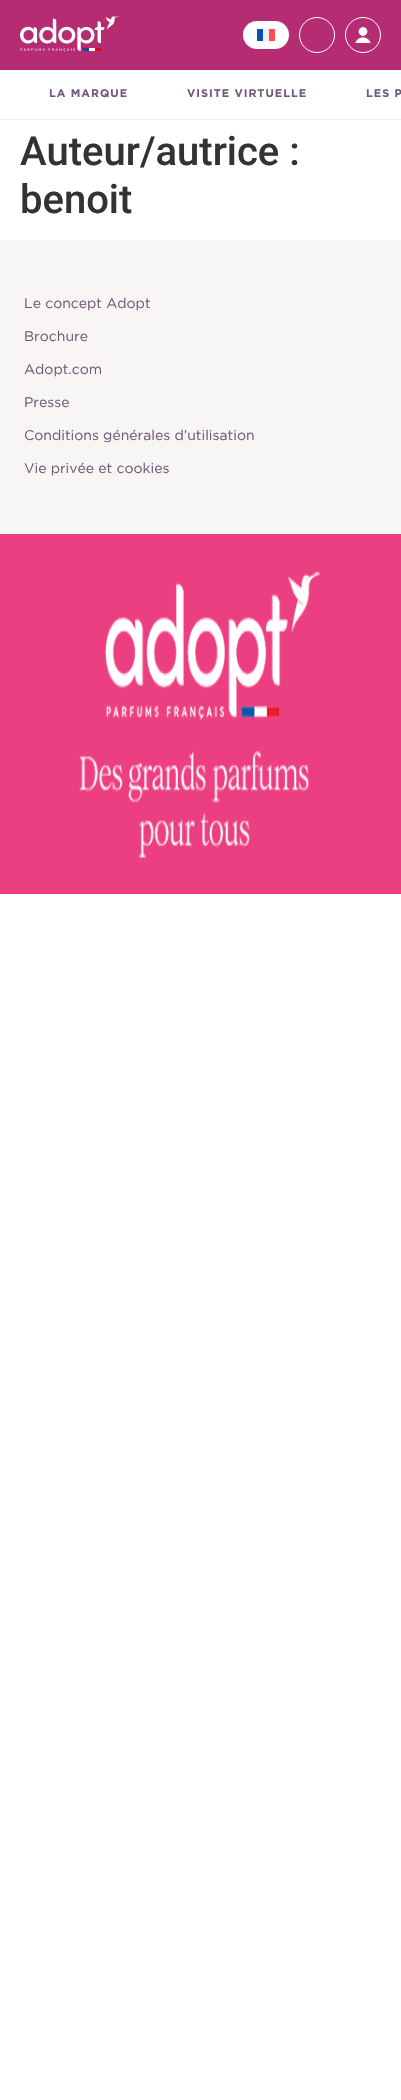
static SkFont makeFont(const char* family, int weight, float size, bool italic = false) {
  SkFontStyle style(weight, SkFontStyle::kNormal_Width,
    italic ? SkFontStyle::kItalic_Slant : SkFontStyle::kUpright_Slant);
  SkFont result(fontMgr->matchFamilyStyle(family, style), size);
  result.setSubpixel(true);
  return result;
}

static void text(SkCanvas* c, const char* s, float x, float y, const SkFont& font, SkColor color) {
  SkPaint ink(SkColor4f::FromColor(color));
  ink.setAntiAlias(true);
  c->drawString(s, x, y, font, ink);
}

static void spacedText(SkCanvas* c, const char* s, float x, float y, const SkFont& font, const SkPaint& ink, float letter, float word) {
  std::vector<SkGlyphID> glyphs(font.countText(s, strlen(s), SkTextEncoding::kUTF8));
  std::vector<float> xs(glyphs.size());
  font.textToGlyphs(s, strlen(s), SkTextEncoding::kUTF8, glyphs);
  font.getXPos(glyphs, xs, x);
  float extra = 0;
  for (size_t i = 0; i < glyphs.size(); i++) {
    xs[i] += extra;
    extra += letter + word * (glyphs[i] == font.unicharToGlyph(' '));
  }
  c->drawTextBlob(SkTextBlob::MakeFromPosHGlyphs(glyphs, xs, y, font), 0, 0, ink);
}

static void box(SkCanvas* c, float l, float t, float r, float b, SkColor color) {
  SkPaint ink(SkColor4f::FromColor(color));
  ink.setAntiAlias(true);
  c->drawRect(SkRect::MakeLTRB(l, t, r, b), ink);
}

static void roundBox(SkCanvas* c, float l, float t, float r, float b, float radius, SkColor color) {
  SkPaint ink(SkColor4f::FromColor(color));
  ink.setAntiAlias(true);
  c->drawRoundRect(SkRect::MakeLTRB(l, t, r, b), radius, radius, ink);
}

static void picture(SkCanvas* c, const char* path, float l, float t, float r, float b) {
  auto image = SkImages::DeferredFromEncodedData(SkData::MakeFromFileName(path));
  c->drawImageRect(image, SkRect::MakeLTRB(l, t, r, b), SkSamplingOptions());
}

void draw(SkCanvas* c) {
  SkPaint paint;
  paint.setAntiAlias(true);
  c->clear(0xffffffff);
  box(c, 0, 0, 401, 70, 0xffb62c73);
  picture(c, "img_01.png", 20, 16, 120, 52);
  roundBox(c, 243, 21, 289, 49, 14, 0xffffffff);
  box(c, 263, 29, 269, 41, 0xfff0f0f0);
  box(c, 269, 29, 275, 41, 0xffff4b55);
  box(c, 257, 29, 263, 41, 0xff0052b4);
  paint.setStyle(SkPaint::kStroke_Style);
  paint.setStrokeWidth(1);
  paint.setColor(0xffffffff);
  c->drawCircle(317, 35, 17.5f, paint);
  c->drawCircle(363, 35, 17.5f, paint);
  picture(c, "img_02.png", 355, 27, 371, 43);
  box(c, 0, 119, 401, 120, 0xfff0ecf2);
  SkFont face1 = makeFont("Gotham", 700, 11);
  paint.setStyle(SkPaint::kFill_Style);
  paint.setColor(0xff715a78);
  spacedText(c, "LA MARQUE", 49, 97, face1, paint, 1, 0);
  spacedText(c, "VISITE VIRTUELLE", 187, 97, face1, paint, 1, 0);
  spacedText(c, "LES P", 366, 97, face1, paint, 1, 0);
  SkFont face2 = makeFont("Roboto", 500, 40);
  text(c, "Auteur/autrice :", 20, 165, face2, 0xff333333);
  text(c, "benoit", 20, 213, face2, 0xff333333);
  box(c, 0, 240, 401, 534, 0xfff8f5f5);
  SkFont face3 = makeFont("Gotham", 400, 14);
  text(c, "Le concept Adopt", 24, 308, face3, 0xff715a78);
  text(c, "Brochure", 24, 341, face3, 0xff715a78);
  text(c, "Adopt.com", 24, 374, face3, 0xff715a78);
  text(c, "Presse", 24, 407, face3, 0xff715a78);
  text(c, "Conditions générales d’utilisation", 24, 440, face3, 0xff715a78);
  text(c, "Vie privée et cookies", 24, 473, face3, 0xff715a78);
  box(c, 0, 534, 401, 894, 0xffec3f82);
  picture(c, "img_03.png", 79, 571, 321, 858);
}
